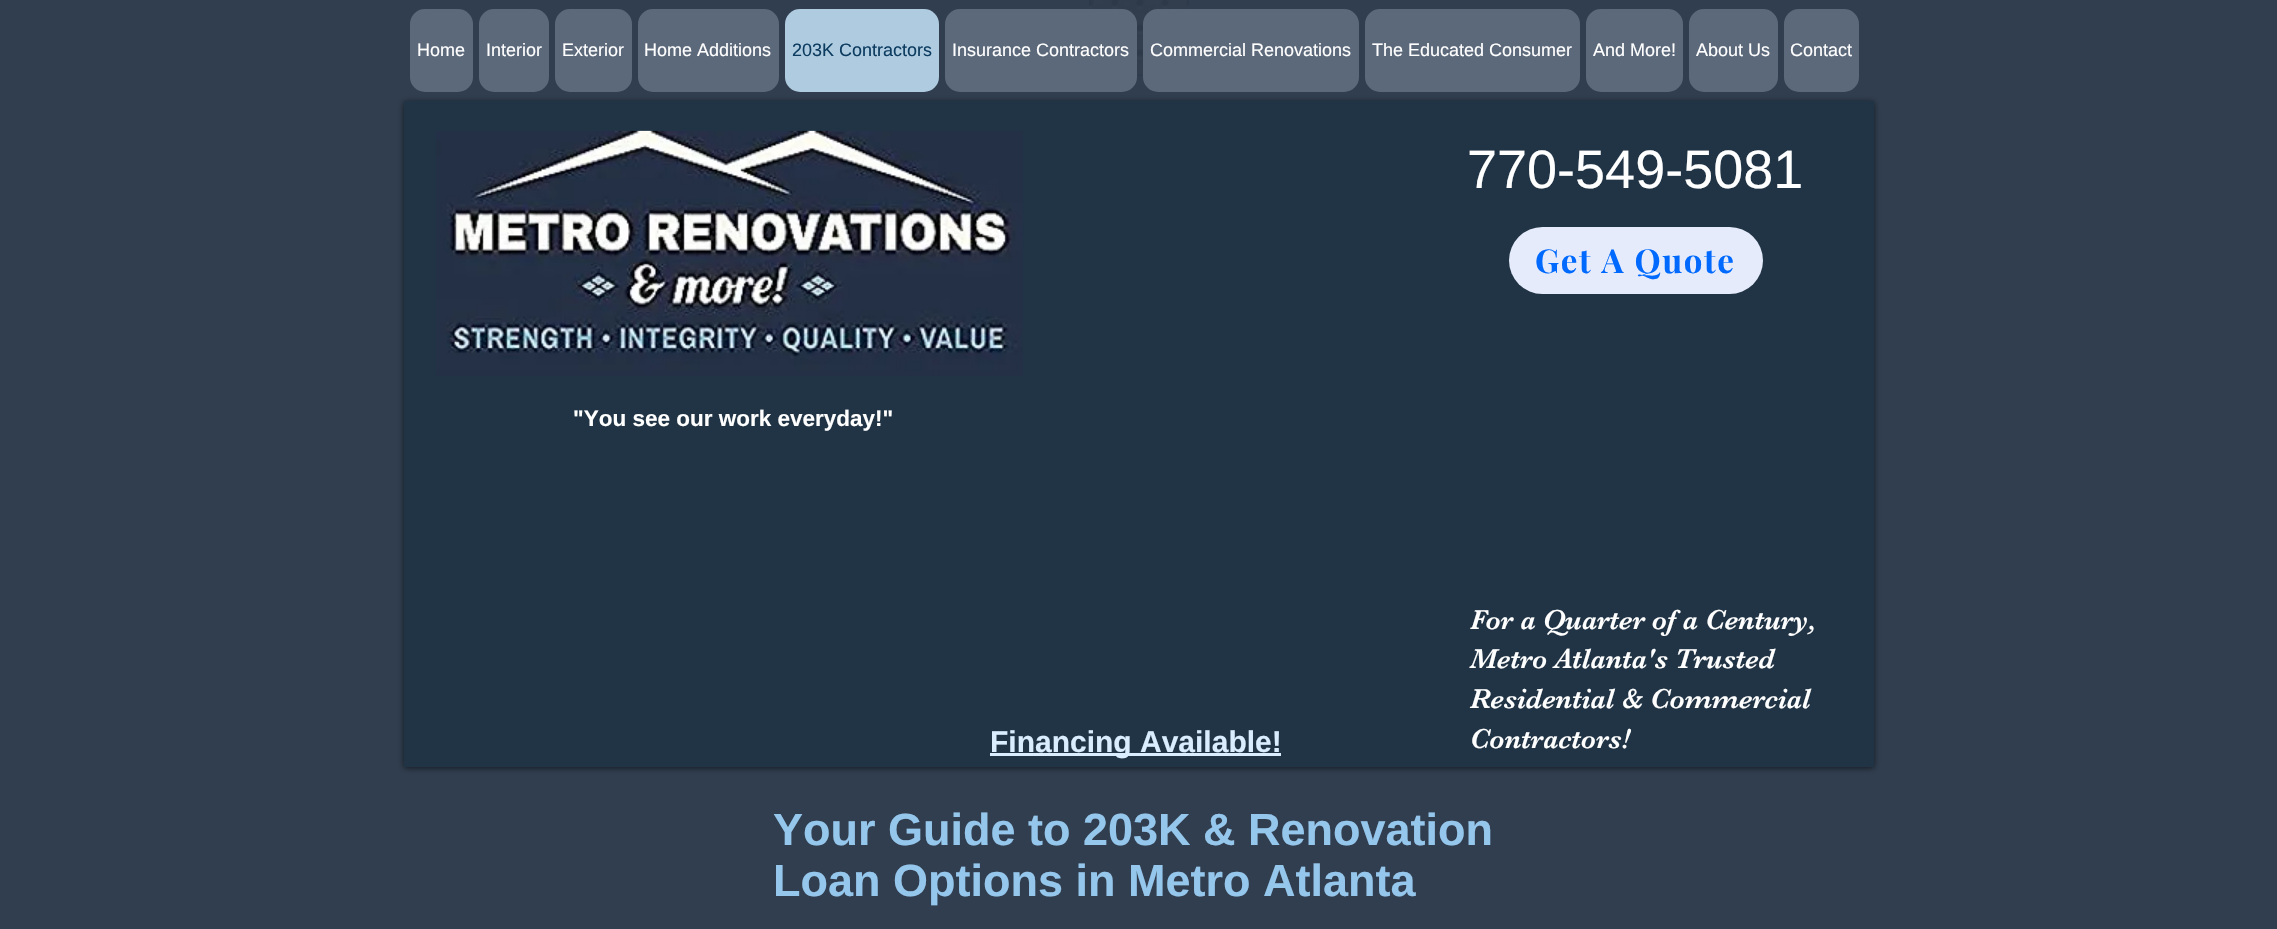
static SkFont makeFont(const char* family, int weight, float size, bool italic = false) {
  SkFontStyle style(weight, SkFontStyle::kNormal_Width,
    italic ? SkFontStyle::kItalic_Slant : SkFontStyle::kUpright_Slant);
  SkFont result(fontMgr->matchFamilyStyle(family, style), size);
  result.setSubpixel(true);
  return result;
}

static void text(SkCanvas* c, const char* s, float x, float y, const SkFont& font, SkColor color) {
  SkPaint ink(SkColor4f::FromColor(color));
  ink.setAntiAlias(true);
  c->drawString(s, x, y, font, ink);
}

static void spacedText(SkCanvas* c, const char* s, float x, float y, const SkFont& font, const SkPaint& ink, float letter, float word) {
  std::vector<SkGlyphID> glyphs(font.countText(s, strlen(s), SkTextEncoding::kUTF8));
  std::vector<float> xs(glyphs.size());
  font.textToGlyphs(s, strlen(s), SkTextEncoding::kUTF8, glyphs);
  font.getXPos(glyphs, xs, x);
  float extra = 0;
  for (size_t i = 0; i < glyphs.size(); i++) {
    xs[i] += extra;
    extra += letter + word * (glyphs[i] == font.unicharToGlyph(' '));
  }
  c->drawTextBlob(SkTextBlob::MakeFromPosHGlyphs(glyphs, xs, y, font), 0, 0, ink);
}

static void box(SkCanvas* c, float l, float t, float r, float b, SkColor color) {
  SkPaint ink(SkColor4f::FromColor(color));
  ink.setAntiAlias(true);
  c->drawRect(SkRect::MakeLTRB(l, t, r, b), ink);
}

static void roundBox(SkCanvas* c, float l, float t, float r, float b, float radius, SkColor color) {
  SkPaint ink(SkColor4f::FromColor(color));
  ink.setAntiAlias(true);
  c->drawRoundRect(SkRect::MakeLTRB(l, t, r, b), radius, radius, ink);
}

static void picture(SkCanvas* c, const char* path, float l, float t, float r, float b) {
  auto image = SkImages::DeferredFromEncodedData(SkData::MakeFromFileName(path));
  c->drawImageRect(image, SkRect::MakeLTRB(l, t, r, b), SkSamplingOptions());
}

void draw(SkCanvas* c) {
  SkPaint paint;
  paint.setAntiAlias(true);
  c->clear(0xff313e4f);
  picture(c, "img_01.png", 1089, 0, 1189, 76);
  roundBox(c, 410, 9, 473, 92, 15, 0xff5c697b);
  SkFont face1 = makeFont("Liberation Sans", 400, 18);
  text(c, "Home", 417, 56, face1, 0xffffffff);
  roundBox(c, 479, 9, 549, 92, 15, 0xff5c697b);
  text(c, "Interior", 486, 56, face1, 0xffffffff);
  roundBox(c, 555, 9, 632, 92, 15, 0xff5c697b);
  text(c, "Exterior", 562, 56, face1, 0xffffffff);
  roundBox(c, 638, 9, 779, 92, 15, 0xff5c697b);
  text(c, "Home Additions", 644, 56, face1, 0xffffffff);
  roundBox(c, 785, 9, 939, 92, 15, 0xffafcbe0);
  text(c, "203K Contractors", 792, 56, face1, 0xff0c3c60);
  roundBox(c, 945, 9, 1137, 92, 15, 0xff5c697b);
  text(c, "Insurance Contractors", 952, 56, face1, 0xffffffff);
  roundBox(c, 1143, 9, 1359, 92, 15, 0xff5c697b);
  text(c, "Commercial Renovations", 1150, 56, face1, 0xffffffff);
  roundBox(c, 1365, 9, 1580, 92, 15, 0xff5c697b);
  text(c, "The Educated Consumer", 1372, 56, face1, 0xffffffff);
  roundBox(c, 1586, 9, 1683, 92, 15, 0xff5c697b);
  text(c, "And More!", 1593, 56, face1, 0xffffffff);
  roundBox(c, 1689, 9, 1778, 92, 15, 0xff5c697b);
  text(c, "About Us", 1696, 56, face1, 0xffffffff);
  roundBox(c, 1784, 9, 1859, 92, 15, 0xff5c697b);
  text(c, "Contact", 1790, 56, face1, 0xffffffff);
  c->save();
  c->clipPath(SkPathBuilder(SkPathFillType::kEvenOdd).moveTo(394, 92).lineTo(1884, 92).lineTo(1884, 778).lineTo(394, 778).close().moveTo(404, 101).lineTo(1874, 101).lineTo(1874, 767).lineTo(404, 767).close().detach(), true);
  paint.setColor(0x99000000);
  paint.setMaskFilter(SkMaskFilter::MakeBlur(kNormal_SkBlurStyle, 3));
  c->drawRect(SkRect::MakeLTRB(404, 102, 1874, 768), paint);
  paint.setMaskFilter(nullptr);
  c->restore();
  box(c, 404, 101, 1874, 767, 0x61062134);
  picture(c, "img_02.png", 436, 130, 1023, 376);
  SkFont face2 = makeFont("Liberation Sans", 400, 54);
  text(c, "770-549-5081", 1467, 188, face2, 0xffffffff);
  roundBox(c, 1509, 227, 1763, 294, 33.5f, 0xffe5ebfa);
  SkFont face3 = makeFont("Playfair Display", 700, 33);
  paint.setColor(0xff0069ff);
  spacedText(c, "Get A Quote", 1535, 273, face3, paint, 1.6f, 0);
  SkFont face4 = makeFont("Liberation Sans", 700, 22.5f);
  text(c, "\"You see our work everyday!\"", 573, 426, face4, 0xffffffff);
  box(c, 990, 753, 1281, 756, 0xffdaedff);
  SkFont face5 = makeFont("Liberation Sans", 700, 30);
  text(c, "Financing Available!", 990, 752, face5, 0xffdaedff);
  SkFont face6 = makeFont("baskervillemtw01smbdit", 400, 28.5f);
  text(c, "For a Quarter of a Century,", 1470, 629, face6, 0xffffffff);
  text(c, "Metro Atlanta's Trusted", 1470, 668, face6, 0xffffffff);
  text(c, "Residential & Commercial", 1470, 708, face6, 0xffffffff);
  text(c, "Contractors!", 1470, 748, face6, 0xffffffff);
  SkFont face7 = makeFont("Liberation Sans", 700, 45);
  text(c, "Your Guide to 203K & Renovation", 773, 845, face7, 0xff95c6ec);
  text(c, "Loan Options in Metro Atlanta", 773, 896, face7, 0xff95c6ec);
}
